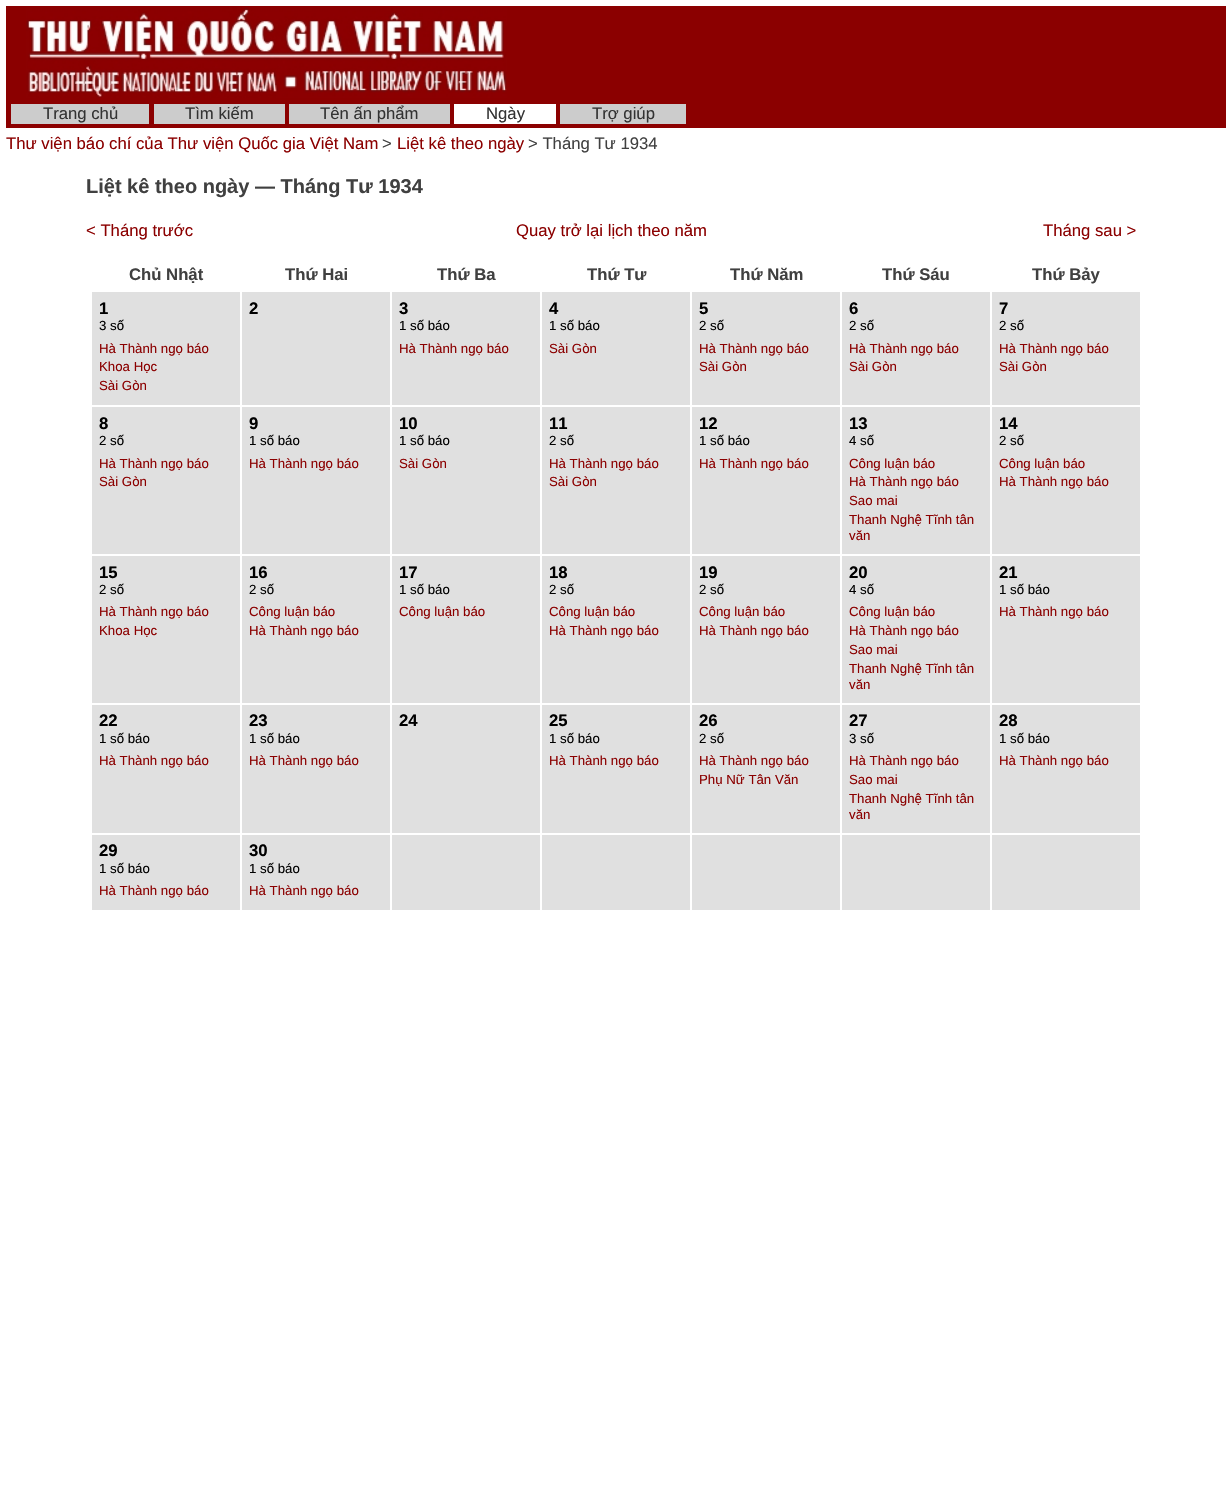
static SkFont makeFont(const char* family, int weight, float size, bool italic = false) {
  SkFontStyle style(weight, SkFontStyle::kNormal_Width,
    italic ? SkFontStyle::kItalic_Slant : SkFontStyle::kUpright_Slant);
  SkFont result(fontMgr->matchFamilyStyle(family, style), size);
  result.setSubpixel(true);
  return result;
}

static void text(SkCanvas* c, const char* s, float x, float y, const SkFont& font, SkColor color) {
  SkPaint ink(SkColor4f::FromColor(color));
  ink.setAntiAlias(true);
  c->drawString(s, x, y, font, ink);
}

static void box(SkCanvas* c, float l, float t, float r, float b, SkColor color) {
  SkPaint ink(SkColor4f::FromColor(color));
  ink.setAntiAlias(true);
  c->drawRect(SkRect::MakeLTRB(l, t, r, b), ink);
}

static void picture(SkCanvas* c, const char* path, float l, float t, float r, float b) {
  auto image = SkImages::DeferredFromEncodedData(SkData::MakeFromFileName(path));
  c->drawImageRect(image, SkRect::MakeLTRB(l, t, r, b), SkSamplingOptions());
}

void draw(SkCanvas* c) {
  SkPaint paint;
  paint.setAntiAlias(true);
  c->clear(0xffffffff);
  box(c, 6, 6, 1226, 128, 0xff8b0000);
  picture(c, "img_01.png", 26, 7, 507, 98);
  box(c, 11, 104, 149, 124, 0xffcccccc);
  SkFont face1 = makeFont("Liberation Sans", 400, 16.7f);
  text(c, "Trang chủ", 43, 119, face1, 0xff333333);
  box(c, 154, 104, 285, 124, 0xffcccccc);
  text(c, "Tìm kiếm", 185, 119, face1, 0xff333333);
  box(c, 289, 104, 450, 124, 0xffcccccc);
  text(c, "Tên ấn phẩm", 320, 119, face1, 0xff333333);
  box(c, 454, 104, 556, 124, 0xffffffff);
  text(c, "Ngày", 486, 119, face1, 0xff333333);
  box(c, 560, 104, 686, 124, 0xffcccccc);
  text(c, "Trợ giúp", 592, 119, face1, 0xff333333);
  text(c, "Thư viện báo chí của Thư viện Quốc gia Việt Nam", 6, 149, face1, 0xff8b0000);
  text(c, ">", 382, 149, face1, 0xff404040);
  text(c, "Liệt kê theo ngày", 397, 149, face1, 0xff8b0000);
  text(c, "> Tháng Tư 1934", 528, 149, face1, 0xff404040);
  SkFont face2 = makeFont("Liberation Sans", 700, 20);
  text(c, "Liệt kê theo ngày — Tháng Tư 1934", 86, 193, face2, 0xff404040);
  text(c, "< Tháng trước", 86, 236, face1, 0xff8b0000);
  text(c, "Quay trở lại lịch theo năm", 516, 236, face1, 0xff8b0000);
  text(c, "Tháng sau >", 1043, 236, face1, 0xff8b0000);
  SkFont face3 = makeFont("Liberation Sans", 700, 16.7f);
  text(c, "Chủ Nhật", 129, 280, face3, 0xff404040);
  text(c, "Thứ Hai", 285, 280, face3, 0xff404040);
  text(c, "Thứ Ba", 437, 280, face3, 0xff404040);
  text(c, "Thứ Tư", 587, 280, face3, 0xff404040);
  text(c, "Thứ Năm", 730, 280, face3, 0xff404040);
  text(c, "Thứ Sáu", 882, 280, face3, 0xff404040);
  text(c, "Thứ Bảy", 1032, 280, face3, 0xff404040);
  box(c, 92, 292, 1140, 405, 0xffe0e0e0);
  paint.setStyle(SkPaint::kStroke_Style);
  paint.setStrokeWidth(1);
  paint.setColor(0xffffffff);
  c->drawRect(SkRect::MakeLTRB(91.5f, 291.5f, 240.5f, 405.5f), paint);
  text(c, "1", 99, 314, face3, 0xff000000);
  SkFont face4 = makeFont("Liberation Sans", 400, 13.25f);
  text(c, "3 số", 99, 330, face4, 0xff000000);
  text(c, "Hà Thành ngọ báo", 99, 353, face4, 0xff8b0000);
  text(c, "Khoa Học", 99, 371, face4, 0xff8b0000);
  text(c, "Sài Gòn", 99, 390, face4, 0xff8b0000);
  c->drawRect(SkRect::MakeLTRB(241.5f, 291.5f, 390.5f, 405.5f), paint);
  text(c, "2", 249, 314, face3, 0xff000000);
  c->drawRect(SkRect::MakeLTRB(391.5f, 291.5f, 540.5f, 405.5f), paint);
  text(c, "3", 399, 314, face3, 0xff000000);
  text(c, "1 số báo", 399, 330, face4, 0xff000000);
  text(c, "Hà Thành ngọ báo", 399, 353, face4, 0xff8b0000);
  c->drawRect(SkRect::MakeLTRB(541.5f, 291.5f, 690.5f, 405.5f), paint);
  text(c, "4", 549, 314, face3, 0xff000000);
  text(c, "1 số báo", 549, 330, face4, 0xff000000);
  text(c, "Sài Gòn", 549, 353, face4, 0xff8b0000);
  c->drawRect(SkRect::MakeLTRB(691.5f, 291.5f, 840.5f, 405.5f), paint);
  text(c, "5", 699, 314, face3, 0xff000000);
  text(c, "2 số", 699, 330, face4, 0xff000000);
  text(c, "Hà Thành ngọ báo", 699, 353, face4, 0xff8b0000);
  text(c, "Sài Gòn", 699, 371, face4, 0xff8b0000);
  c->drawRect(SkRect::MakeLTRB(841.5f, 291.5f, 990.5f, 405.5f), paint);
  text(c, "6", 849, 314, face3, 0xff000000);
  text(c, "2 số", 849, 330, face4, 0xff000000);
  text(c, "Hà Thành ngọ báo", 849, 353, face4, 0xff8b0000);
  text(c, "Sài Gòn", 849, 371, face4, 0xff8b0000);
  c->drawRect(SkRect::MakeLTRB(991.5f, 291.5f, 1140.5f, 405.5f), paint);
  text(c, "7", 999, 314, face3, 0xff000000);
  text(c, "2 số", 999, 330, face4, 0xff000000);
  text(c, "Hà Thành ngọ báo", 999, 353, face4, 0xff8b0000);
  text(c, "Sài Gòn", 999, 371, face4, 0xff8b0000);
  box(c, 92, 407, 1140, 554, 0xffe0e0e0);
  c->drawRect(SkRect::MakeLTRB(91.5f, 406.5f, 240.5f, 554.5f), paint);
  text(c, "8", 99, 429, face3, 0xff000000);
  text(c, "2 số", 99, 445, face4, 0xff000000);
  text(c, "Hà Thành ngọ báo", 99, 468, face4, 0xff8b0000);
  text(c, "Sài Gòn", 99, 486, face4, 0xff8b0000);
  c->drawRect(SkRect::MakeLTRB(241.5f, 406.5f, 390.5f, 554.5f), paint);
  text(c, "9", 249, 429, face3, 0xff000000);
  text(c, "1 số báo", 249, 445, face4, 0xff000000);
  text(c, "Hà Thành ngọ báo", 249, 468, face4, 0xff8b0000);
  c->drawRect(SkRect::MakeLTRB(391.5f, 406.5f, 540.5f, 554.5f), paint);
  text(c, "10", 399, 429, face3, 0xff000000);
  text(c, "1 số báo", 399, 445, face4, 0xff000000);
  text(c, "Sài Gòn", 399, 468, face4, 0xff8b0000);
  c->drawRect(SkRect::MakeLTRB(541.5f, 406.5f, 690.5f, 554.5f), paint);
  text(c, "11", 549, 429, face3, 0xff000000);
  text(c, "2 số", 549, 445, face4, 0xff000000);
  text(c, "Hà Thành ngọ báo", 549, 468, face4, 0xff8b0000);
  text(c, "Sài Gòn", 549, 486, face4, 0xff8b0000);
  c->drawRect(SkRect::MakeLTRB(691.5f, 406.5f, 840.5f, 554.5f), paint);
  text(c, "12", 699, 429, face3, 0xff000000);
  text(c, "1 số báo", 699, 445, face4, 0xff000000);
  text(c, "Hà Thành ngọ báo", 699, 468, face4, 0xff8b0000);
  c->drawRect(SkRect::MakeLTRB(841.5f, 406.5f, 990.5f, 554.5f), paint);
  text(c, "13", 849, 429, face3, 0xff000000);
  text(c, "4 số", 849, 445, face4, 0xff000000);
  text(c, "Công luận báo", 849, 468, face4, 0xff8b0000);
  text(c, "Hà Thành ngọ báo", 849, 486, face4, 0xff8b0000);
  text(c, "Sao mai", 849, 505, face4, 0xff8b0000);
  text(c, "Thanh Nghệ Tĩnh tân", 849, 524, face4, 0xff8b0000);
  text(c, "văn", 849, 540, face4, 0xff8b0000);
  c->drawRect(SkRect::MakeLTRB(991.5f, 406.5f, 1140.5f, 554.5f), paint);
  text(c, "14", 999, 429, face3, 0xff000000);
  text(c, "2 số", 999, 445, face4, 0xff000000);
  text(c, "Công luận báo", 999, 468, face4, 0xff8b0000);
  text(c, "Hà Thành ngọ báo", 999, 486, face4, 0xff8b0000);
  box(c, 92, 556, 1140, 703, 0xffe0e0e0);
  c->drawRect(SkRect::MakeLTRB(91.5f, 555.5f, 240.5f, 703.5f), paint);
  text(c, "15", 99, 578, face3, 0xff000000);
  text(c, "2 số", 99, 594, face4, 0xff000000);
  text(c, "Hà Thành ngọ báo", 99, 616, face4, 0xff8b0000);
  text(c, "Khoa Học", 99, 635, face4, 0xff8b0000);
  c->drawRect(SkRect::MakeLTRB(241.5f, 555.5f, 390.5f, 703.5f), paint);
  text(c, "16", 249, 578, face3, 0xff000000);
  text(c, "2 số", 249, 594, face4, 0xff000000);
  text(c, "Công luận báo", 249, 616, face4, 0xff8b0000);
  text(c, "Hà Thành ngọ báo", 249, 635, face4, 0xff8b0000);
  c->drawRect(SkRect::MakeLTRB(391.5f, 555.5f, 540.5f, 703.5f), paint);
  text(c, "17", 399, 578, face3, 0xff000000);
  text(c, "1 số báo", 399, 594, face4, 0xff000000);
  text(c, "Công luận báo", 399, 616, face4, 0xff8b0000);
  c->drawRect(SkRect::MakeLTRB(541.5f, 555.5f, 690.5f, 703.5f), paint);
  text(c, "18", 549, 578, face3, 0xff000000);
  text(c, "2 số", 549, 594, face4, 0xff000000);
  text(c, "Công luận báo", 549, 616, face4, 0xff8b0000);
  text(c, "Hà Thành ngọ báo", 549, 635, face4, 0xff8b0000);
  c->drawRect(SkRect::MakeLTRB(691.5f, 555.5f, 840.5f, 703.5f), paint);
  text(c, "19", 699, 578, face3, 0xff000000);
  text(c, "2 số", 699, 594, face4, 0xff000000);
  text(c, "Công luận báo", 699, 616, face4, 0xff8b0000);
  text(c, "Hà Thành ngọ báo", 699, 635, face4, 0xff8b0000);
  c->drawRect(SkRect::MakeLTRB(841.5f, 555.5f, 990.5f, 703.5f), paint);
  text(c, "20", 849, 578, face3, 0xff000000);
  text(c, "4 số", 849, 594, face4, 0xff000000);
  text(c, "Công luận báo", 849, 616, face4, 0xff8b0000);
  text(c, "Hà Thành ngọ báo", 849, 635, face4, 0xff8b0000);
  text(c, "Sao mai", 849, 654, face4, 0xff8b0000);
  text(c, "Thanh Nghệ Tĩnh tân", 849, 673, face4, 0xff8b0000);
  text(c, "văn", 849, 689, face4, 0xff8b0000);
  c->drawRect(SkRect::MakeLTRB(991.5f, 555.5f, 1140.5f, 703.5f), paint);
  text(c, "21", 999, 578, face3, 0xff000000);
  text(c, "1 số báo", 999, 594, face4, 0xff000000);
  text(c, "Hà Thành ngọ báo", 999, 616, face4, 0xff8b0000);
  box(c, 92, 705, 1140, 833, 0xffe0e0e0);
  c->drawRect(SkRect::MakeLTRB(91.5f, 704.5f, 240.5f, 833.5f), paint);
  text(c, "22", 99, 726, face3, 0xff000000);
  text(c, "1 số báo", 99, 743, face4, 0xff000000);
  text(c, "Hà Thành ngọ báo", 99, 765, face4, 0xff8b0000);
  c->drawRect(SkRect::MakeLTRB(241.5f, 704.5f, 390.5f, 833.5f), paint);
  text(c, "23", 249, 726, face3, 0xff000000);
  text(c, "1 số báo", 249, 743, face4, 0xff000000);
  text(c, "Hà Thành ngọ báo", 249, 765, face4, 0xff8b0000);
  c->drawRect(SkRect::MakeLTRB(391.5f, 704.5f, 540.5f, 833.5f), paint);
  text(c, "24", 399, 726, face3, 0xff000000);
  c->drawRect(SkRect::MakeLTRB(541.5f, 704.5f, 690.5f, 833.5f), paint);
  text(c, "25", 549, 726, face3, 0xff000000);
  text(c, "1 số báo", 549, 743, face4, 0xff000000);
  text(c, "Hà Thành ngọ báo", 549, 765, face4, 0xff8b0000);
  c->drawRect(SkRect::MakeLTRB(691.5f, 704.5f, 840.5f, 833.5f), paint);
  text(c, "26", 699, 726, face3, 0xff000000);
  text(c, "2 số", 699, 743, face4, 0xff000000);
  text(c, "Hà Thành ngọ báo", 699, 765, face4, 0xff8b0000);
  text(c, "Phụ Nữ Tân Văn", 699, 784, face4, 0xff8b0000);
  c->drawRect(SkRect::MakeLTRB(841.5f, 704.5f, 990.5f, 833.5f), paint);
  text(c, "27", 849, 726, face3, 0xff000000);
  text(c, "3 số", 849, 743, face4, 0xff000000);
  text(c, "Hà Thành ngọ báo", 849, 765, face4, 0xff8b0000);
  text(c, "Sao mai", 849, 784, face4, 0xff8b0000);
  text(c, "Thanh Nghệ Tĩnh tân", 849, 803, face4, 0xff8b0000);
  text(c, "văn", 849, 819, face4, 0xff8b0000);
  c->drawRect(SkRect::MakeLTRB(991.5f, 704.5f, 1140.5f, 833.5f), paint);
  text(c, "28", 999, 726, face3, 0xff000000);
  text(c, "1 số báo", 999, 743, face4, 0xff000000);
  text(c, "Hà Thành ngọ báo", 999, 765, face4, 0xff8b0000);
  box(c, 92, 835, 1140, 910, 0xffe0e0e0);
  c->drawRect(SkRect::MakeLTRB(91.5f, 834.5f, 240.5f, 910.5f), paint);
  text(c, "29", 99, 856, face3, 0xff000000);
  text(c, "1 số báo", 99, 873, face4, 0xff000000);
  text(c, "Hà Thành ngọ báo", 99, 895, face4, 0xff8b0000);
  c->drawRect(SkRect::MakeLTRB(241.5f, 834.5f, 390.5f, 910.5f), paint);
  text(c, "30", 249, 856, face3, 0xff000000);
  text(c, "1 số báo", 249, 873, face4, 0xff000000);
  text(c, "Hà Thành ngọ báo", 249, 895, face4, 0xff8b0000);
  c->drawRect(SkRect::MakeLTRB(391.5f, 834.5f, 540.5f, 910.5f), paint);
  c->drawRect(SkRect::MakeLTRB(541.5f, 834.5f, 690.5f, 910.5f), paint);
  c->drawRect(SkRect::MakeLTRB(691.5f, 834.5f, 840.5f, 910.5f), paint);
  c->drawRect(SkRect::MakeLTRB(841.5f, 834.5f, 990.5f, 910.5f), paint);
  c->drawRect(SkRect::MakeLTRB(991.5f, 834.5f, 1140.5f, 910.5f), paint);
}
